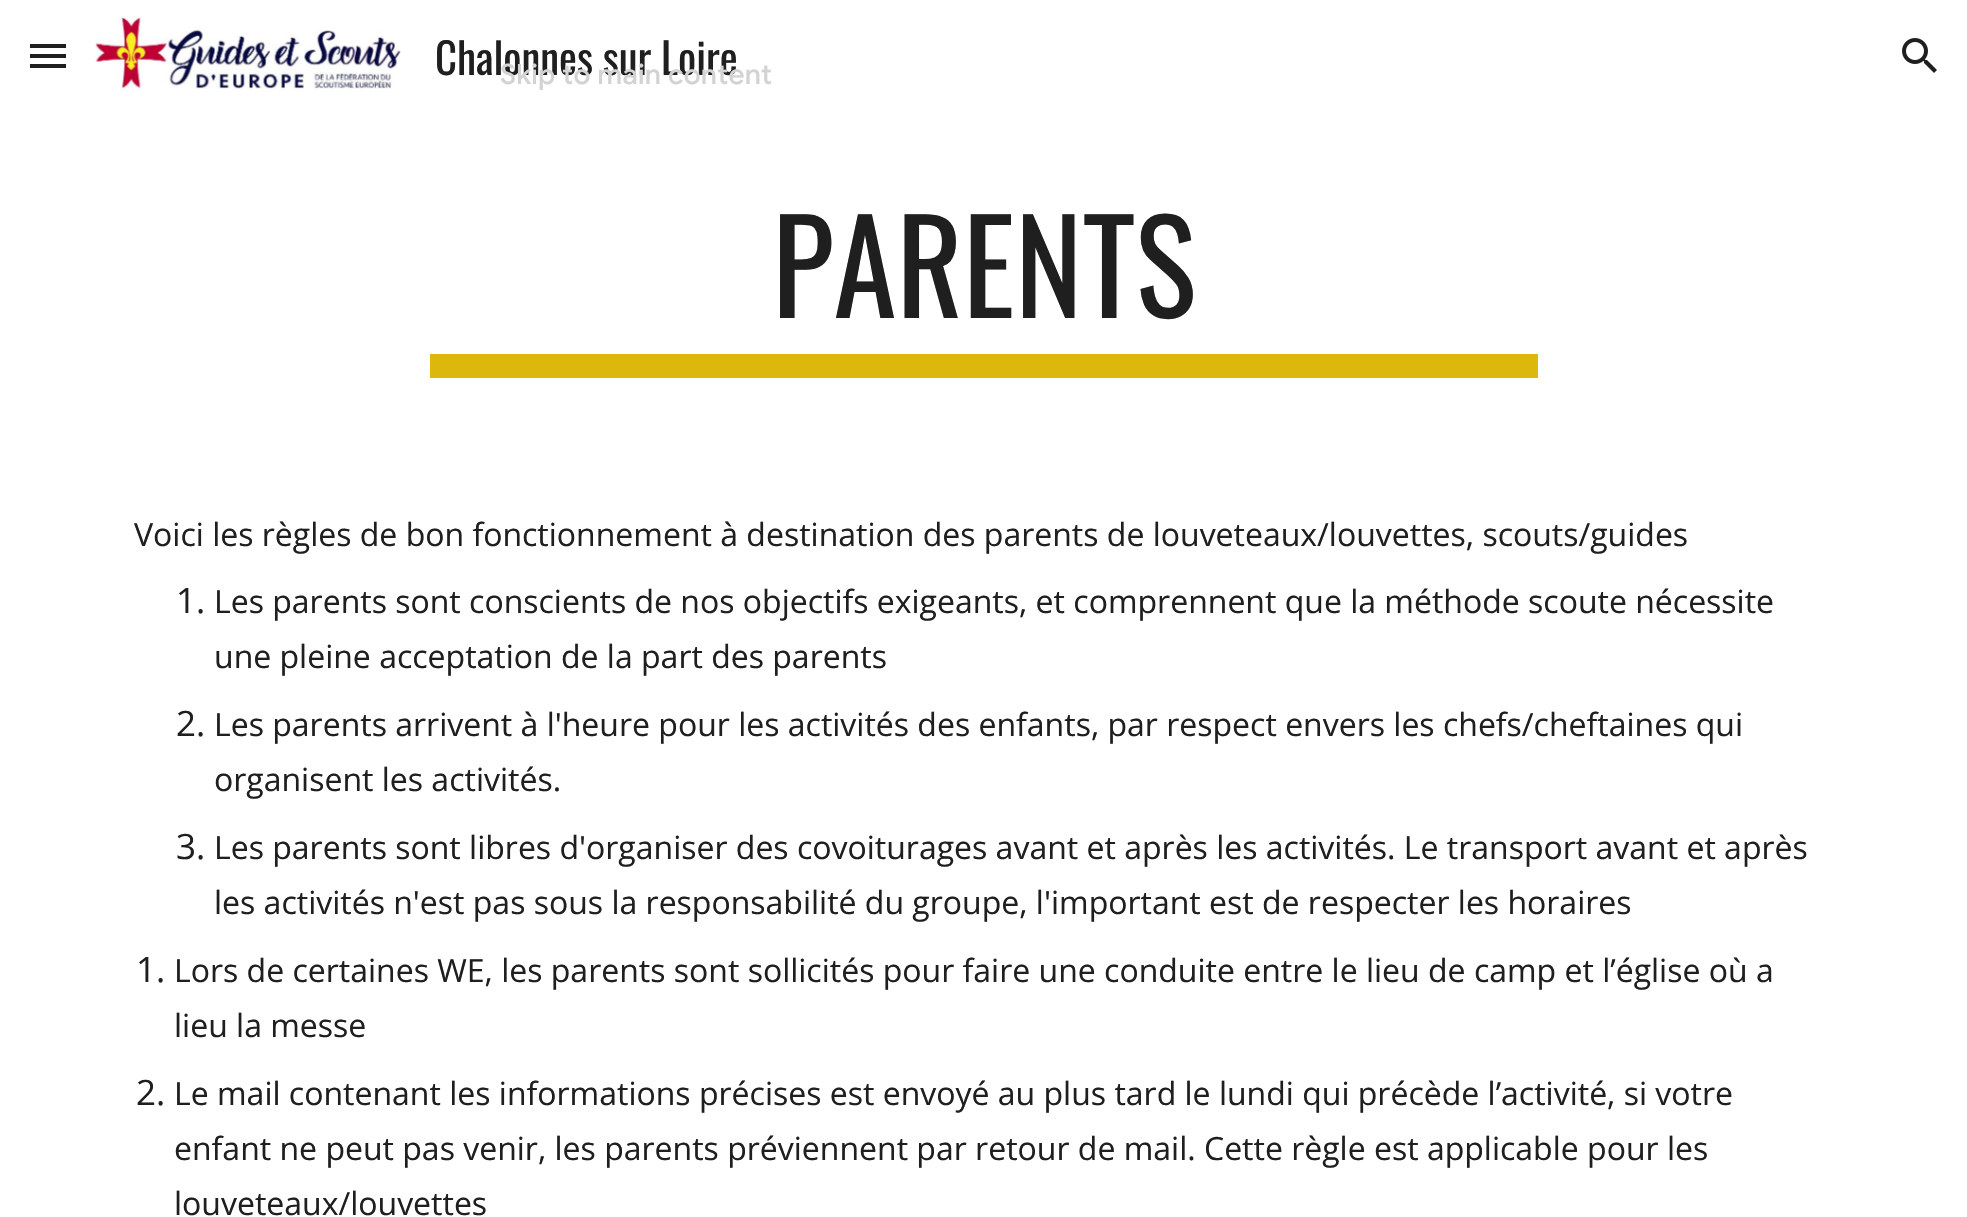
static SkFont makeFont(const char* family, int weight, float size, bool italic = false) {
  SkFontStyle style(weight, SkFontStyle::kNormal_Width,
    italic ? SkFontStyle::kItalic_Slant : SkFontStyle::kUpright_Slant);
  SkFont result(fontMgr->matchFamilyStyle(family, style), size);
  result.setSubpixel(true);
  return result;
}

static void text(SkCanvas* c, const char* s, float x, float y, const SkFont& font, SkColor color) {
  SkPaint ink(SkColor4f::FromColor(color));
  ink.setAntiAlias(true);
  c->drawString(s, x, y, font, ink);
}

static void spacedText(SkCanvas* c, const char* s, float x, float y, const SkFont& font, const SkPaint& ink, float letter, float word) {
  std::vector<SkGlyphID> glyphs(font.countText(s, strlen(s), SkTextEncoding::kUTF8));
  std::vector<float> xs(glyphs.size());
  font.textToGlyphs(s, strlen(s), SkTextEncoding::kUTF8, glyphs);
  font.getXPos(glyphs, xs, x);
  float extra = 0;
  for (size_t i = 0; i < glyphs.size(); i++) {
    xs[i] += extra;
    extra += letter + word * (glyphs[i] == font.unicharToGlyph(' '));
  }
  c->drawTextBlob(SkTextBlob::MakeFromPosHGlyphs(glyphs, xs, y, font), 0, 0, ink);
}

static void box(SkCanvas* c, float l, float t, float r, float b, SkColor color) {
  SkPaint ink(SkColor4f::FromColor(color));
  ink.setAntiAlias(true);
  c->drawRect(SkRect::MakeLTRB(l, t, r, b), ink);
}

static void picture(SkCanvas* c, const char* path, float l, float t, float r, float b) {
  auto image = SkImages::DeferredFromEncodedData(SkData::MakeFromFileName(path));
  c->drawImageRect(image, SkRect::MakeLTRB(l, t, r, b), SkSamplingOptions());
}

void draw(SkCanvas* c) {
  SkPaint paint;
  paint.setAntiAlias(true);
  c->clear(0xffffffff);
  box(c, 30, 44, 66, 48, 0xff1f1f1f);
  box(c, 30, 54, 66, 58, 0xff1f1f1f);
  box(c, 30, 64, 66, 68, 0xff1f1f1f);
  picture(c, "img_01.png", 95, 16, 401, 92);
  SkFont face1 = makeFont("Oswald", 400, 42.75f);
  text(c, "Chalonnes sur Loire", 435, 75, face1, 0xff1f1f1f);
  picture(c, "img_02.png", 1902, 38, 1937, 73);
  SkFont face2 = makeFont("Oswald", 400, 128);
  text(c, "PARENTS", 772, 318, face2, 0xff1f1f1f);
  box(c, 430, 354, 1538, 378, 0xffdcb80c);
  SkFont face3 = makeFont("Open Sans", 400, 32);
  text(c, "Voici les règles de bon fonctionnement à destination des parents de louveteaux/louvettes, scouts/guides", 134, 546, face3, 0xff1f1f1f);
  SkFont face4 = makeFont("Open Sans", 400, 35);
  text(c, "1.", 176, 613, face4, 0xff1f1f1f);
  text(c, "Les parents sont conscients de nos objectifs exigeants, et comprennent que la méthode scoute nécessite", 214, 613, face3, 0xff1f1f1f);
  text(c, "une pleine acceptation de la part des parents", 214, 668, face3, 0xff1f1f1f);
  text(c, "2.", 176, 736, face4, 0xff1f1f1f);
  text(c, "Les parents arrivent à l'heure pour les activités des enfants, par respect envers les chefs/cheftaines qui", 214, 736, face3, 0xff1f1f1f);
  text(c, "organisent les activités.", 214, 791, face3, 0xff1f1f1f);
  text(c, "3.", 176, 859, face4, 0xff1f1f1f);
  text(c, "Les parents sont libres d'organiser des covoiturages avant et après les activités. Le transport avant et après", 214, 859, face3, 0xff1f1f1f);
  text(c, "les activités n'est pas sous la responsabilité du groupe, l'important est de respecter les horaires", 214, 914, face3, 0xff1f1f1f);
  text(c, "1.", 136, 982, face4, 0xff1f1f1f);
  text(c, "Lors de certaines WE, les parents sont sollicités pour faire une conduite entre le lieu de camp et l’église où a", 174, 982, face3, 0xff1f1f1f);
  text(c, "lieu la messe", 174, 1037, face3, 0xff1f1f1f);
  text(c, "2.", 136, 1105, face4, 0xff1f1f1f);
  text(c, "Le mail contenant les informations précises est envoyé au plus tard le lundi qui précède l’activité, si votre", 174, 1105, face3, 0xff1f1f1f);
  text(c, "enfant ne peut pas venir, les parents préviennent par retour de mail. Cette règle est applicable pour les", 174, 1160, face3, 0xff1f1f1f);
  text(c, "louveteaux/louvettes", 174, 1215, face3, 0xff1f1f1f);
  SkFont face5 = makeFont("Google Sans", 500, 28);
  paint.setColor(0xffd3d3d3);
  spacedText(c, "Skip to main content", 500, 84, face5, paint, 0.25f, 0);
}
